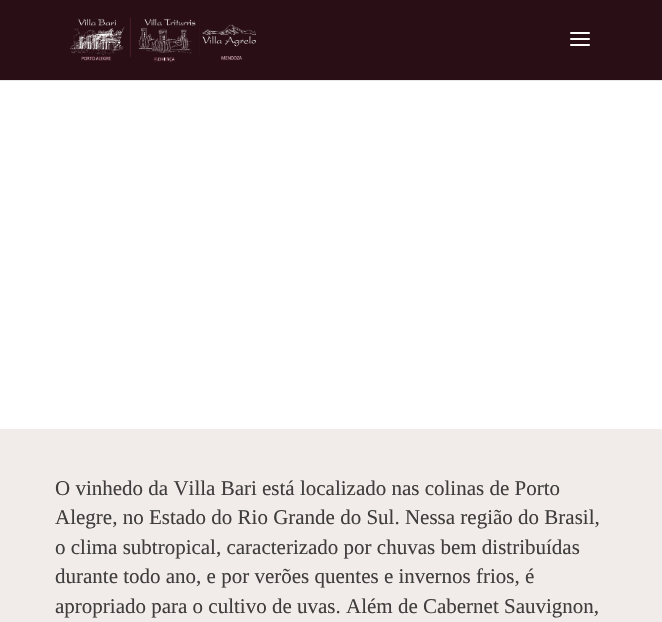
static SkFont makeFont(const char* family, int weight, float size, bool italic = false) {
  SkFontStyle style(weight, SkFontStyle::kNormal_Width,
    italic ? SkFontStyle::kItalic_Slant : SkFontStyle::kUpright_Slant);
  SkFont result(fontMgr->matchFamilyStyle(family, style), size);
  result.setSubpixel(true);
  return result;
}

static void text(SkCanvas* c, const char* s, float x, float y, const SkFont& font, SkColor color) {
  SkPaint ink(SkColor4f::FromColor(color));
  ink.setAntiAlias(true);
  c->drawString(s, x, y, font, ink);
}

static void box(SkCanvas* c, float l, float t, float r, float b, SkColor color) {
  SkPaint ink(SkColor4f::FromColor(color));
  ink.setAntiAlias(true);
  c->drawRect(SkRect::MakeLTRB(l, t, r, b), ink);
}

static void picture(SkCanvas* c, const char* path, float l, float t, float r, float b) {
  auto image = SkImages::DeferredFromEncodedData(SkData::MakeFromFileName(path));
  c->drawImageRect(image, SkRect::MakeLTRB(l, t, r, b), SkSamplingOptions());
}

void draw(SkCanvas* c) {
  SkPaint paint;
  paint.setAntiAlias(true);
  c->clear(0xffffffff);
  box(c, 0, 80, 662, 81, 0xffe6e6e6);
  box(c, 0, 0, 662, 80, 0xff290f15);
  picture(c, "img_01.png", 70, 18, 256, 62);
  picture(c, "img_02.png", 570, 32, 590, 46);
  box(c, 0, 429, 662, 622, 0xfff1ece9);
  SkFont face1 = makeFont("Liberation Serif", 400, 21);
  text(c, "O vinhedo da Villa Bari está localizado nas colinas de Porto", 55, 495, face1, 0xff3f3d3d);
  text(c, "Alegre, no Estado do Rio Grande do Sul. Nessa região do Brasil,", 55, 524, face1, 0xff3f3d3d);
  text(c, "o clima subtropical, caracterizado por chuvas bem distribuídas", 55, 554, face1, 0xff3f3d3d);
  text(c, "durante todo ano, e por verões quentes e invernos frios, é", 55, 583, face1, 0xff3f3d3d);
  text(c, "apropriado para o cultivo de uvas. Além de Cabernet Sauvignon,", 55, 613, face1, 0xff3f3d3d);
}
